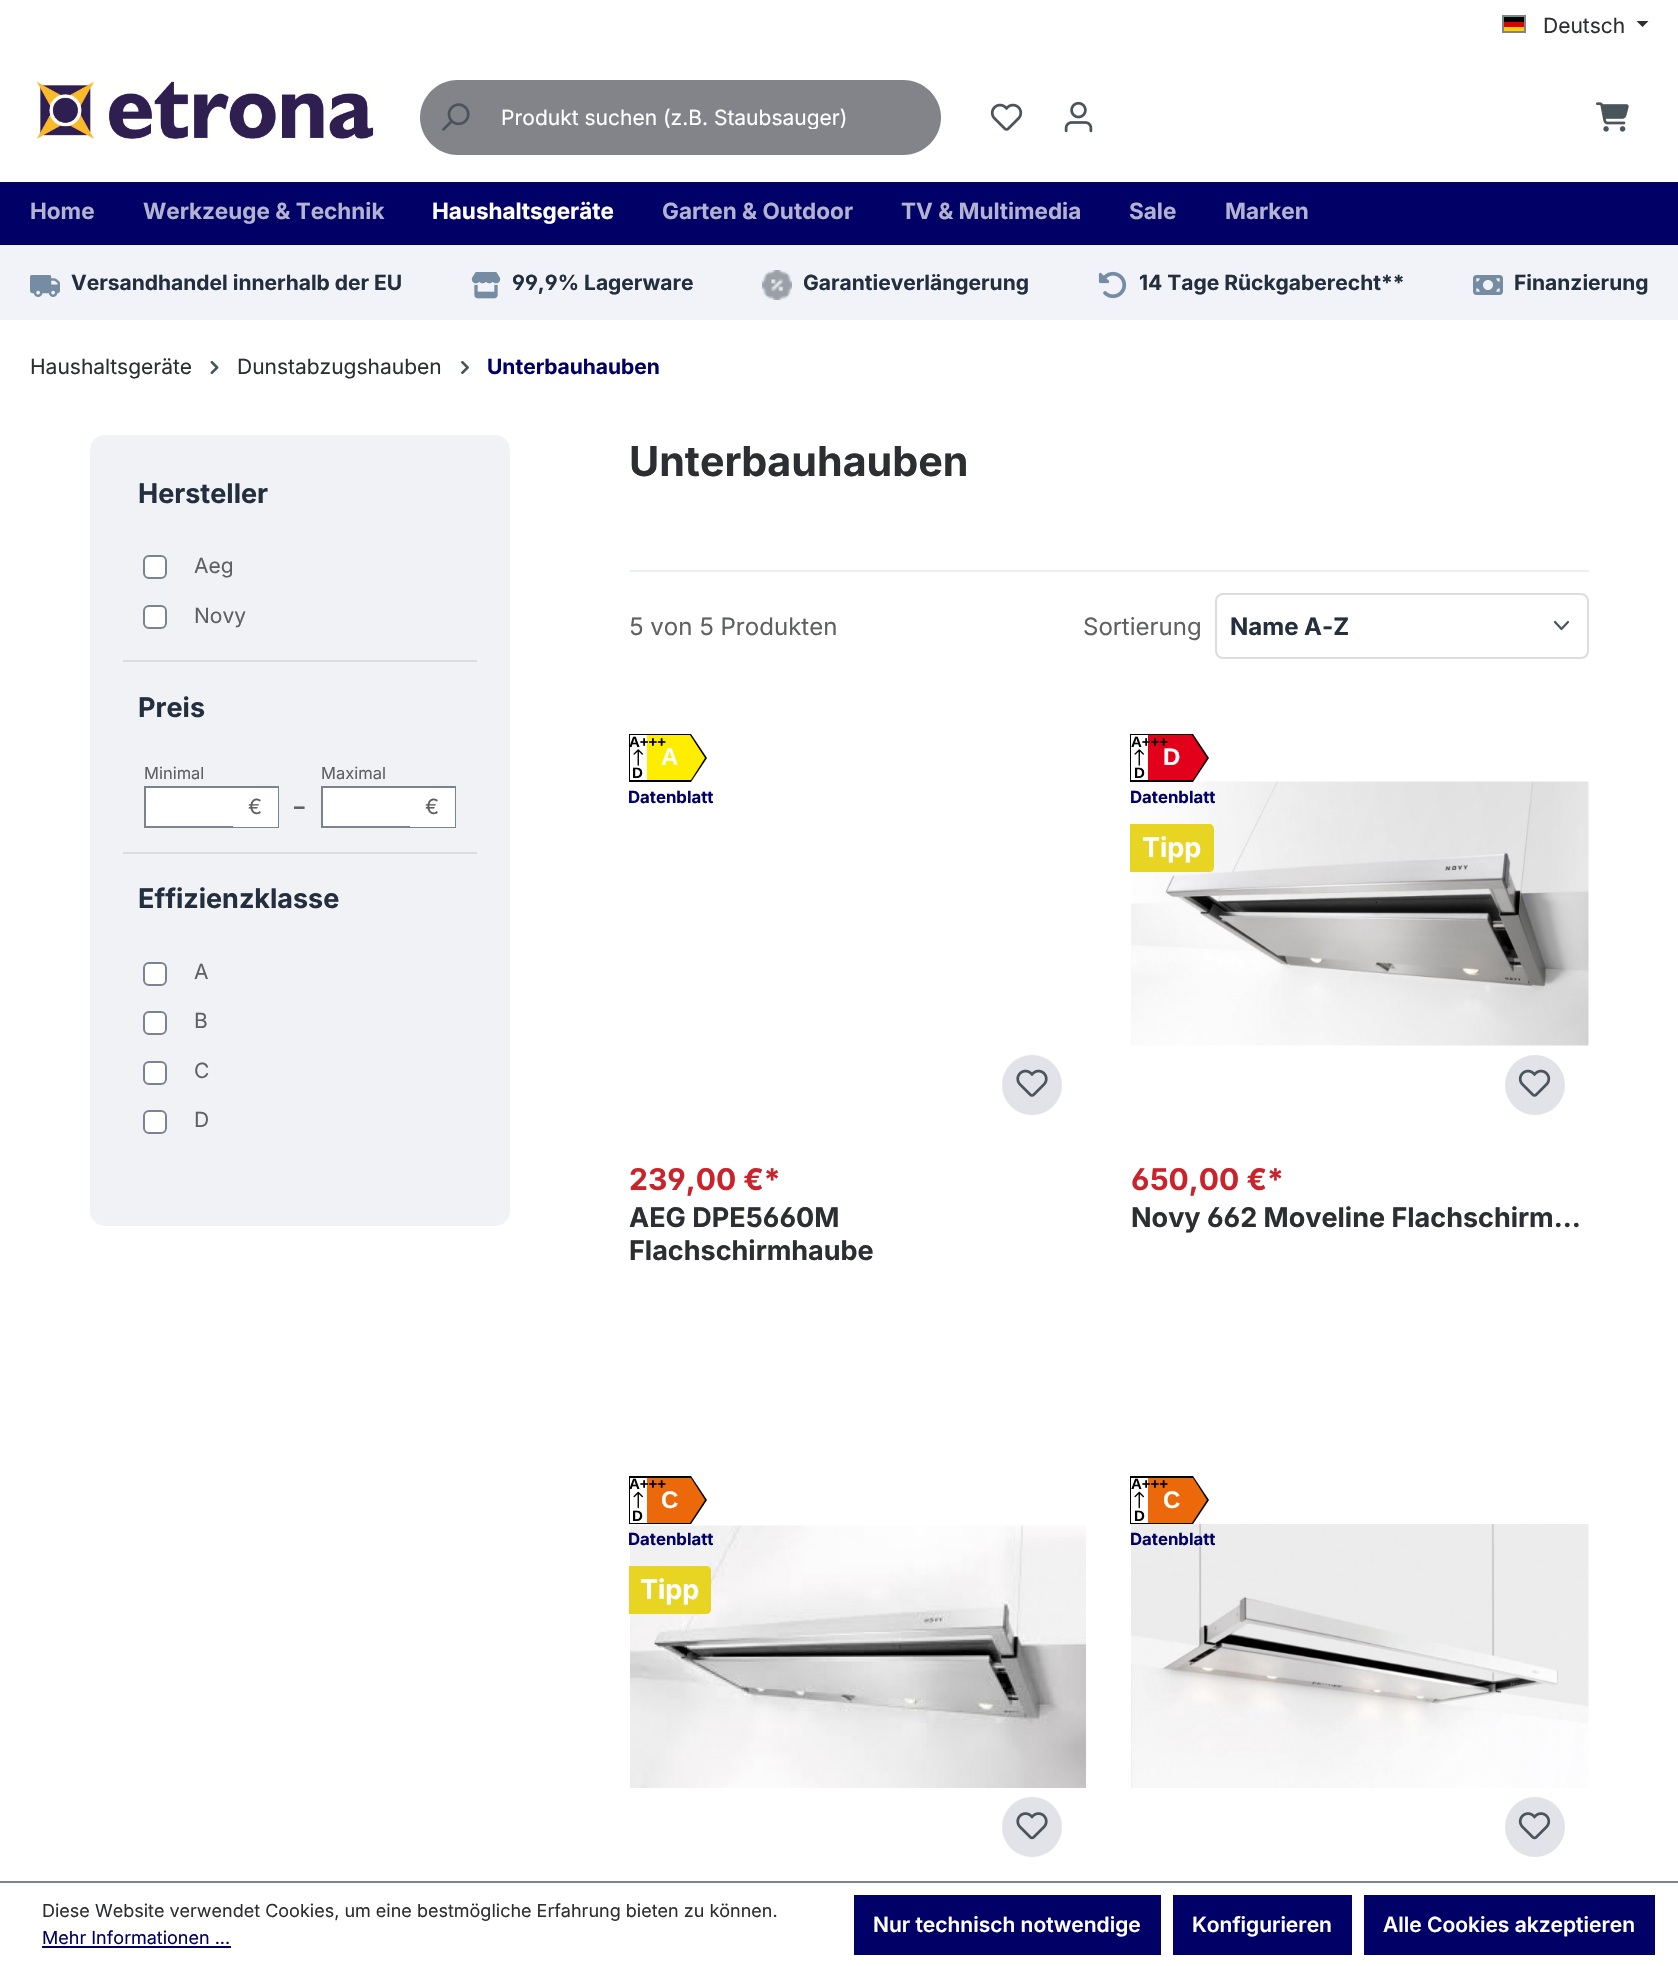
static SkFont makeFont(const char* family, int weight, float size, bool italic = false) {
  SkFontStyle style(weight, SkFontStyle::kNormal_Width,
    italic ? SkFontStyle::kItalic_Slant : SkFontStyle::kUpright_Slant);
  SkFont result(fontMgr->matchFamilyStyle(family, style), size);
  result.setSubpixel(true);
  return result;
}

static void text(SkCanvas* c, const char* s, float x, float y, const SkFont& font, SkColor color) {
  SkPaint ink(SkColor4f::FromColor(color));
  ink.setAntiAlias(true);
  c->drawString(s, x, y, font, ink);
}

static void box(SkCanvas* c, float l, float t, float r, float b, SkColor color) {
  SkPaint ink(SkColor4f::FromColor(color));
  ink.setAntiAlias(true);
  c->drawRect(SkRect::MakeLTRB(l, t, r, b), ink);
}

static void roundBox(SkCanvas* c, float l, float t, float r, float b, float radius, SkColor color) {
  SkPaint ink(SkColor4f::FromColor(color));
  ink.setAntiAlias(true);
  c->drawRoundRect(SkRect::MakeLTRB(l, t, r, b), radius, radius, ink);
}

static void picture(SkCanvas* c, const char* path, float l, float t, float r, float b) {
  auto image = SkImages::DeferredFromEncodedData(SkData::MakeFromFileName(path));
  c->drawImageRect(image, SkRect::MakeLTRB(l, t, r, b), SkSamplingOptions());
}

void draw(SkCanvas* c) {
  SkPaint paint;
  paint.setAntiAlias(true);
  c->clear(0xffffffff);
  box(c, 1503, 27, 1524, 31, 0xffffce00);
  box(c, 1503, 17, 1524, 22, 0xff000000);
  box(c, 1503, 22, 1524, 27, 0xffdd0000);
  paint.setStyle(SkPaint::kStroke_Style);
  paint.setStrokeWidth(2);
  paint.setColor(0xff838489);
  c->drawRect(SkRect::MakeLTRB(1503, 16, 1525, 32), paint);
  SkFont face1 = makeFont("Inter", 400, 21);
  text(c, "Deutsch", 1543, 33, face1, 0xff2d2e32);
  paint.setStyle(SkPaint::kFill_Style);
  paint.setColor(0xff2d2e32);
  c->drawPath(SkPathBuilder().moveTo(1636.5f, 21).lineTo(1648.5f, 21).lineTo(1642.5f, 27).close().detach(), paint);
  picture(c, "img_01.png", 36, 81, 377, 142);
  paint.setColor(0xff838489);
  c->drawPath(SkPathBuilder().moveTo(488, 80).lineTo(903.5f, 80).cubicTo(924, 80, 941, 97, 941, 117.5f).cubicTo(941, 138, 924, 155, 903.5f, 155).lineTo(488, 155).close().detach(), paint);
  c->drawPath(SkPathBuilder().moveTo(457.5f, 80).lineTo(489, 80).lineTo(489, 155).lineTo(457.5f, 155).cubicTo(437, 155, 420, 138, 420, 117.5f).cubicTo(420, 97, 437, 80, 457.5f, 80).close().detach(), paint);
  picture(c, "img_02.png", 442, 103, 470, 131);
  c->save();
  c->clipRect(SkRect::MakeLTRB(501, 104, 927, 129));
  text(c, "Produkt suchen (z.B. Staubsauger)", 501, 125, face1, 0xffffffff);
  c->restore();
  picture(c, "img_03.png", 990, 103, 1023, 131);
  picture(c, "img_04.png", 1064, 101, 1093, 133);
  picture(c, "img_05.png", 1596, 102, 1629, 132);
  box(c, 0, 182, 1678, 245, 0xff010066);
  SkFont face2 = makeFont("Inter", 700, 22.5f);
  text(c, "Home", 30, 219, face2, 0xffb3b3d1);
  text(c, "Werkzeuge & Technik", 143, 219, face2, 0xffb3b3d1);
  text(c, "Haushaltsgeräte", 432, 219, face2, 0xffffffff);
  text(c, "Garten & Outdoor", 662, 219, face2, 0xffb3b3d1);
  text(c, "TV & Multimedia", 901, 219, face2, 0xffb3b3d1);
  text(c, "Sale", 1129, 219, face2, 0xffb3b3d1);
  text(c, "Marken", 1225, 219, face2, 0xffb3b3d1);
  box(c, 0, 245, 1678, 320, 0xfff2f3f8);
  picture(c, "img_06.png", 30, 275, 60, 297);
  SkFont face3 = makeFont("Inter", 700, 21);
  text(c, "Versandhandel innerhalb der EU", 71, 290, face3, 0xff232f3e);
  picture(c, "img_07.png", 471, 272, 501, 299);
  SkFont face4 = makeFont("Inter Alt", 700, 21);
  text(c, "99,9% Lagerware", 512, 290, face4, 0xff232f3e);
  picture(c, "img_08.png", 762, 270, 792, 300);
  text(c, "Garantieverlängerung", 803, 290, face3, 0xff232f3e);
  picture(c, "img_09.png", 1098, 271, 1127, 299);
  text(c, "14 Tage Rückgaberecht**", 1139, 290, face3, 0xff232f3e);
  picture(c, "img_10.png", 1473, 275, 1503, 295);
  text(c, "Finanzierung", 1514, 290, face3, 0xff232f3e);
  text(c, "Haushaltsgeräte", 30, 374, face1, 0xff2d2e32);
  picture(c, "img_11.png", 210, 361, 219, 374);
  text(c, "Dunstabzugshauben", 237, 374, face1, 0xff2d2e32);
  picture(c, "img_12.png", 461, 360, 469, 374);
  text(c, "Unterbauhauben", 487, 374, face3, 0xff010066);
  roundBox(c, 90, 435, 510, 1226, 15, 0xfff0f2f5);
  SkFont face5 = makeFont("Inter", 700, 27);
  text(c, "Hersteller", 138, 503, face5, 0xff232f3e);
  box(c, 123, 660, 477, 662, 0xffdddddd);
  paint.setColor(0xffffffff);
  c->drawRoundRect(SkRect::MakeLTRB(144, 556, 166, 578), 5, 5, paint);
  paint.setStyle(SkPaint::kStroke_Style);
  paint.setColor(0xff798490);
  c->drawRoundRect(SkRect::MakeLTRB(144, 556, 166, 578), 5, 5, paint);
  text(c, "Aeg", 194, 573, face1, 0xff5f6061);
  paint.setStyle(SkPaint::kFill_Style);
  paint.setColor(0xffffffff);
  c->drawRoundRect(SkRect::MakeLTRB(144, 606, 166, 628), 5, 5, paint);
  paint.setStyle(SkPaint::kStroke_Style);
  paint.setColor(0xff798490);
  c->drawRoundRect(SkRect::MakeLTRB(144, 606, 166, 628), 5, 5, paint);
  text(c, "Novy", 194, 623, face1, 0xff5f6061);
  text(c, "Preis", 138, 717, face5, 0xff232f3e);
  box(c, 123, 852, 477, 854, 0xffdddddd);
  SkFont face6 = makeFont("Inter", 400, 16.5f);
  text(c, "Minimal", 144, 779, face6, 0xff5f6061);
  box(c, 146, 788, 233, 826, 0xffffffff);
  c->drawRect(SkRect::MakeLTRB(145, 787, 278, 827), paint);
  box(c, 233, 788, 278, 827, 0xffffffff);
  text(c, "€", 248, 814, face1, 0xff5f6061);
  text(c, "–", 294, 814, face3, 0xff5f6061);
  text(c, "Maximal", 321, 779, face6, 0xff5f6061);
  box(c, 323, 788, 410, 826, 0xffffffff);
  c->drawRect(SkRect::MakeLTRB(322, 787, 455, 827), paint);
  box(c, 410, 788, 455, 827, 0xffffffff);
  text(c, "€", 425, 814, face1, 0xff5f6061);
  text(c, "Effizienzklasse", 138, 908, face5, 0xff232f3e);
  paint.setStyle(SkPaint::kFill_Style);
  paint.setColor(0xffffffff);
  c->drawRoundRect(SkRect::MakeLTRB(144, 963, 166, 985), 5, 5, paint);
  paint.setStyle(SkPaint::kStroke_Style);
  paint.setColor(0xff798490);
  c->drawRoundRect(SkRect::MakeLTRB(144, 963, 166, 985), 5, 5, paint);
  text(c, "A", 194, 979, face1, 0xff5f6061);
  paint.setStyle(SkPaint::kFill_Style);
  paint.setColor(0xffffffff);
  c->drawRoundRect(SkRect::MakeLTRB(144, 1012, 166, 1034), 5, 5, paint);
  paint.setStyle(SkPaint::kStroke_Style);
  paint.setColor(0xff798490);
  c->drawRoundRect(SkRect::MakeLTRB(144, 1012, 166, 1034), 5, 5, paint);
  text(c, "B", 194, 1028, face1, 0xff5f6061);
  paint.setStyle(SkPaint::kFill_Style);
  paint.setColor(0xffffffff);
  c->drawRoundRect(SkRect::MakeLTRB(144, 1062, 166, 1084), 5, 5, paint);
  paint.setStyle(SkPaint::kStroke_Style);
  paint.setColor(0xff798490);
  c->drawRoundRect(SkRect::MakeLTRB(144, 1062, 166, 1084), 5, 5, paint);
  text(c, "C", 194, 1078, face1, 0xff5f6061);
  paint.setStyle(SkPaint::kFill_Style);
  paint.setColor(0xffffffff);
  c->drawRoundRect(SkRect::MakeLTRB(144, 1111, 166, 1133), 5, 5, paint);
  paint.setStyle(SkPaint::kStroke_Style);
  paint.setColor(0xff798490);
  c->drawRoundRect(SkRect::MakeLTRB(144, 1111, 166, 1133), 5, 5, paint);
  text(c, "D", 194, 1127, face1, 0xff5f6061);
  SkFont face7 = makeFont("Inter", 700, 41.25f);
  text(c, "Unterbauhauben", 629, 476, face7, 0xff2d2e32);
  box(c, 630, 570, 1589, 572, 0xffebeff3);
  SkFont face8 = makeFont("Inter", 400, 24);
  text(c, "5 von 5 Produkten", 629, 635, face8, 0xff5f6061);
  text(c, "Sortierung", 1083, 635, face8, 0xff5f6061);
  paint.setStrokeWidth(2.2f);
  paint.setStrokeCap(SkPaint::kRound_Cap);
  paint.setStrokeJoin(SkPaint::kRound_Join);
  paint.setColor(0xff4a545b);
  c->drawPath(SkPathBuilder().moveTo(1555, 622).lineTo(1561.5f, 629).lineTo(1568, 622).detach(), paint);
  paint.setStrokeWidth(2);
  paint.setStrokeCap(SkPaint::kButt_Cap);
  paint.setStrokeJoin(SkPaint::kMiter_Join);
  paint.setColor(0xffdddddd);
  c->drawRoundRect(SkRect::MakeLTRB(1216, 594, 1588, 658), 7, 7, paint);
  SkFont face9 = makeFont("Inter", 700, 24);
  text(c, "Name A-Z", 1230, 635, face9, 0xff232f3e);
  paint.setStyle(SkPaint::kFill_Style);
  paint.setColor(0xff000000);
  c->drawPath(SkPathBuilder().moveTo(629, 734).lineTo(629, 782).lineTo(691, 782).lineTo(707, 758).lineTo(691, 734).close().detach(), paint);
  paint.setColor(0xffffed00);
  c->drawPath(SkPathBuilder().moveTo(630, 735).lineTo(690, 735).lineTo(705, 758).lineTo(691, 780).lineTo(630, 780).close().detach(), paint);
  box(c, 630, 735, 647, 780, 0xffffffff);
  SkFont face10 = makeFont("Liberation Sans", 700, 15);
  text(c, "A+++", 629, 747, face10, 0xff000000);
  picture(c, "img_13.png", 633, 749, 643, 766);
  text(c, "D", 632, 778, face10, 0xff000000);
  SkFont face11 = makeFont("Liberation Sans", 700, 24);
  text(c, "A", 661, 765, face11, 0xffffffff);
  SkFont face12 = makeFont("Inter", 700, 16.75f);
  text(c, "Datenblatt", 628, 803, face12, 0xff010066);
  paint.setColor(0xffe2e3e9);
  c->drawCircle(1032, 1085, 30, paint);
  picture(c, "img_14.png", 1016, 1069, 1048, 1097);
  SkFont face13 = makeFont("Inter Alt", 700, 30);
  text(c, "239,00 €*", 629, 1190, face13, 0xffca232c);
  SkFont face14 = makeFont("Inter Alt", 700, 27);
  text(c, "AEG DPE5660M", 629, 1227, face14, 0xff2d2e32);
  text(c, "Flachschirmhaube", 629, 1260, face5, 0xff2d2e32);
  picture(c, "img_15.png", 1131, 781, 1589, 1046);
  paint.setColor(0xff000000);
  c->drawPath(SkPathBuilder().moveTo(1130, 734).lineTo(1130, 782).lineTo(1193, 782).lineTo(1209, 758).lineTo(1193, 734).close().detach(), paint);
  paint.setColor(0xffe2001a);
  c->drawPath(SkPathBuilder().moveTo(1132, 780).lineTo(1132, 735).lineTo(1192, 735).lineTo(1207, 758).lineTo(1193, 780).close().detach(), paint);
  box(c, 1131, 735, 1148, 780, 0xffffffff);
  text(c, "A+++", 1131, 747, face10, 0xff000000);
  picture(c, "img_13.png", 1134, 749, 1144, 766);
  text(c, "D", 1134, 778, face10, 0xff000000);
  text(c, "D", 1163, 765, face11, 0xffffffff);
  text(c, "Datenblatt", 1130, 803, face12, 0xff010066);
  paint.setColor(0xffe8d423);
  c->drawPath(SkPathBuilder().moveTo(1130, 824).lineTo(1209, 824).cubicTo(1212, 824, 1214, 826, 1214, 829).lineTo(1214, 867).cubicTo(1214, 870, 1212, 872, 1209, 872).lineTo(1130, 872).close().detach(), paint);
  text(c, "Tipp", 1142, 857, face5, 0xffffffff);
  paint.setColor(0xffe2e3e9);
  c->drawCircle(1535, 1085, 30, paint);
  picture(c, "img_16.png", 1518, 1069, 1551, 1097);
  text(c, "650,00 €*", 1131, 1190, face13, 0xffca232c);
  text(c, "Novy 662 Moveline Flachschirm…", 1131, 1227, face14, 0xff2d2e32);
  paint.setColor(0xff000000);
  c->drawPath(SkPathBuilder().moveTo(691, 1524).lineTo(707, 1500).lineTo(691, 1476).lineTo(629, 1476).lineTo(629, 1524).close().detach(), paint);
  paint.setColor(0xffeb690b);
  c->drawPath(SkPathBuilder().moveTo(630, 1478).lineTo(691, 1478).lineTo(705, 1500).lineTo(690, 1523).lineTo(630, 1523).close().detach(), paint);
  box(c, 630, 1478, 647, 1523, 0xffffffff);
  text(c, "A+++", 629, 1489, face10, 0xff000000);
  picture(c, "img_17.png", 633, 1491, 643, 1509);
  text(c, "D", 632, 1521, face10, 0xff000000);
  text(c, "C", 661, 1508, face11, 0xffffffff);
  picture(c, "img_18.png", 630, 1525, 1086, 1788);
  text(c, "Datenblatt", 628, 1545, face12, 0xff010066);
  paint.setColor(0xffe8d423);
  c->drawPath(SkPathBuilder().moveTo(629, 1566).lineTo(706, 1566).cubicTo(709, 1566, 711, 1568, 711, 1571).lineTo(711, 1609).cubicTo(711, 1612, 709, 1614, 706, 1614).lineTo(629, 1614).close().detach(), paint);
  text(c, "Tipp", 640, 1599, face5, 0xffffffff);
  paint.setColor(0xffe2e3e9);
  c->drawCircle(1032, 1827, 30, paint);
  picture(c, "img_19.png", 1016, 1812, 1048, 1840);
  paint.setColor(0xff000000);
  c->drawPath(SkPathBuilder().moveTo(1193, 1524).lineTo(1209, 1500).lineTo(1193, 1476).lineTo(1130, 1476).lineTo(1130, 1524).close().detach(), paint);
  paint.setColor(0xffeb690b);
  c->drawPath(SkPathBuilder().moveTo(1132, 1523).lineTo(1132, 1478).lineTo(1193, 1478).lineTo(1207, 1500).lineTo(1192, 1523).close().detach(), paint);
  box(c, 1131, 1478, 1148, 1523, 0xffffffff);
  text(c, "A+++", 1131, 1489, face10, 0xff000000);
  picture(c, "img_17.png", 1134, 1491, 1144, 1509);
  text(c, "D", 1134, 1521, face10, 0xff000000);
  text(c, "C", 1163, 1508, face11, 0xffffffff);
  picture(c, "img_20.png", 1131, 1524, 1589, 1788);
  text(c, "Datenblatt", 1130, 1545, face12, 0xff010066);
  paint.setColor(0xffe2e3e9);
  c->drawCircle(1535, 1827, 30, paint);
  picture(c, "img_21.png", 1518, 1812, 1551, 1840);
  box(c, 0, 1881, 1678, 1883, 0xff798490);
  SkFont face15 = makeFont("Inter", 400, 18);
  text(c, "Diese Website verwendet Cookies, um eine bestmögliche Erfahrung bieten zu können.", 42, 1917, face15, 0xff2d2e32);
  text(c, "Mehr Informationen ...", 42, 1944, face15, 0xff010066);
  box(c, 42, 1946, 231, 1948, 0xff010066);
  box(c, 854, 1895, 1161, 1955, 0xff010066);
  SkFont face16 = makeFont("Inter", 600, 21);
  text(c, "Nur technisch notwendige", 873, 1932, face16, 0xffffffff);
  box(c, 1173, 1895, 1352, 1955, 0xff010066);
  text(c, "Konfigurieren", 1192, 1932, face16, 0xffffffff);
  box(c, 1364, 1895, 1655, 1955, 0xff010066);
  text(c, "Alle Cookies akzeptieren", 1383, 1932, face16, 0xffffffff);
}
